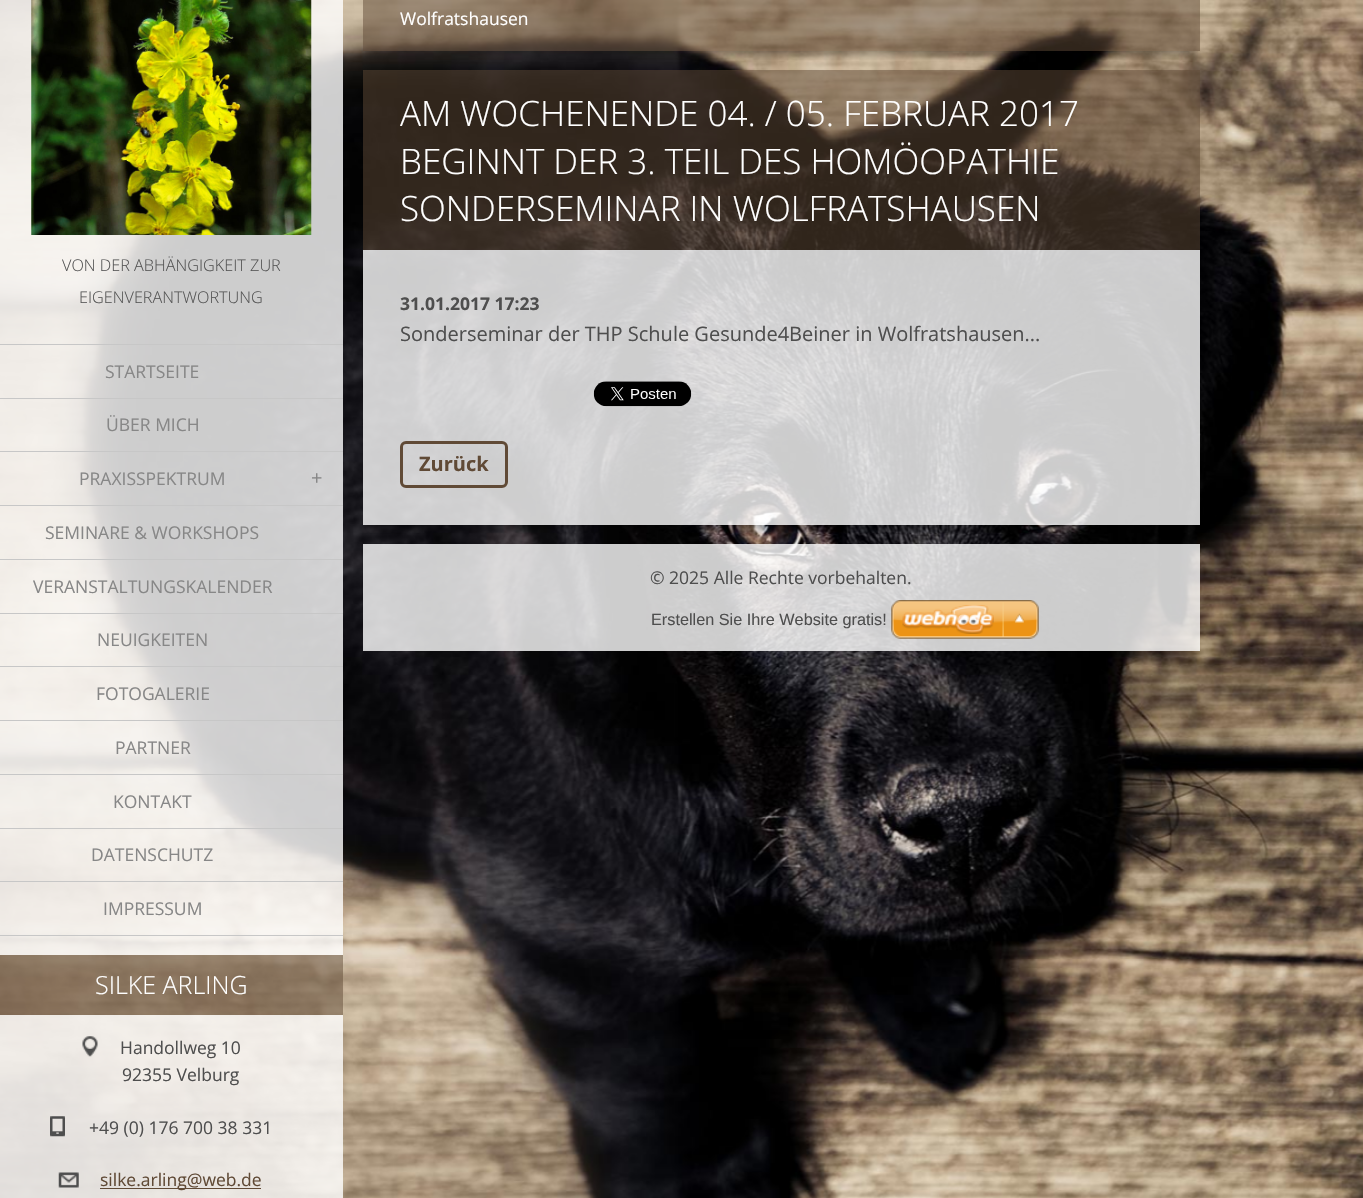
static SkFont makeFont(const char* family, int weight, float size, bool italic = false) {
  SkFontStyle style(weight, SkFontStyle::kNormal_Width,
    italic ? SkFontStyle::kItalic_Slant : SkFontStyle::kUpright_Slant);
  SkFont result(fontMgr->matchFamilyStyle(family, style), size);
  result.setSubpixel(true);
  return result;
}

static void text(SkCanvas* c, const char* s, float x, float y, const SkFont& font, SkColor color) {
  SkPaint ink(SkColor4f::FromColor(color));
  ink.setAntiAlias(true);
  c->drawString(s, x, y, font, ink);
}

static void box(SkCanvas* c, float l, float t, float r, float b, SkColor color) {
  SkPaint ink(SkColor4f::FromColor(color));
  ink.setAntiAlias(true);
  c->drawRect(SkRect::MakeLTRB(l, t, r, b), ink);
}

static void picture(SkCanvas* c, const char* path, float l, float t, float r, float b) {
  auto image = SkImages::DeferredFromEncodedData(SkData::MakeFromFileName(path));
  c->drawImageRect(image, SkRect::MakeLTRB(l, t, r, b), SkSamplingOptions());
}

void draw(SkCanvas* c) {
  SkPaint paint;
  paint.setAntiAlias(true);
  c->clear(0xffffffff);
  picture(c, "img_01.png", 0, 0, 1363, 1198);
  box(c, 0, 0, 343, 250, 0xccffffff);
  picture(c, "img_02.png", 31, 0, 312, 235);
  box(c, 0, 250, 343, 344, 0xccffffff);
  SkFont face1 = makeFont("Open Sans", 300, 16.25f);
  text(c, "VON DER ABHÄNGIGKEIT ZUR", 62, 271, face1, 0xff555555);
  text(c, "EIGENVERANTWORTUNG", 79, 303, face1, 0xff555555);
  box(c, 0, 345, 343, 935, 0xccffffff);
  box(c, 0, 344, 343, 345, 0xffc7c7c7);
  box(c, 0, 398, 343, 399, 0xffc7c7c7);
  SkFont face2 = makeFont("Open Sans", 400, 17.5f);
  text(c, "STARTSEITE", 105, 378, face2, 0xff878787);
  box(c, 0, 451, 343, 452, 0xffc7c7c7);
  text(c, "ÜBER MICH", 106, 431, face2, 0xff878787);
  box(c, 0, 505, 343, 506, 0xffc7c7c7);
  text(c, "PRAXISSPEKTRUM", 79, 485, face2, 0xff878787);
  SkFont face3 = makeFont("Open Sans", 400, 20);
  text(c, "+", 311, 485, face3, 0xff878787);
  box(c, 0, 559, 343, 560, 0xffc7c7c7);
  text(c, "SEMINARE & WORKSHOPS", 45, 539, face2, 0xff878787);
  box(c, 0, 613, 343, 614, 0xffc7c7c7);
  text(c, "VERANSTALTUNGSKALENDER", 33, 593, face2, 0xff878787);
  box(c, 0, 666, 343, 667, 0xffc7c7c7);
  text(c, "NEUIGKEITEN", 97, 646, face2, 0xff878787);
  box(c, 0, 720, 343, 721, 0xffc7c7c7);
  text(c, "FOTOGALERIE", 96, 700, face2, 0xff878787);
  box(c, 0, 774, 343, 775, 0xffc7c7c7);
  text(c, "PARTNER", 115, 754, face2, 0xff878787);
  box(c, 0, 828, 343, 829, 0xffc7c7c7);
  text(c, "KONTAKT", 113, 808, face2, 0xff878787);
  box(c, 0, 881, 343, 882, 0xffc7c7c7);
  text(c, "DATENSCHUTZ", 91, 861, face2, 0xff878787);
  box(c, 0, 935, 343, 936, 0xffc7c7c7);
  text(c, "IMPRESSUM", 103, 915, face2, 0xff878787);
  box(c, 0, 936, 343, 955, 0xccffffff);
  box(c, 0, 955, 343, 1015, 0x80604a36);
  SkFont face4 = makeFont("Open Sans", 300, 25);
  text(c, "SILKE ARLING", 95, 994, face4, 0xffffffff);
  box(c, 0, 1015, 343, 1198, 0xccffffff);
  picture(c, "img_03.png", 82, 1036, 98, 1057);
  text(c, "Handollweg 10", 120, 1054, face2, 0xff4e4e4e);
  text(c, "92355 Velburg", 122, 1081, face2, 0xff4e4e4e);
  picture(c, "img_04.png", 50, 1116, 65, 1137);
  text(c, "+49 (0) 176 700 38 331", 89, 1134, face2, 0xff4e4e4e);
  picture(c, "img_05.png", 58, 1172, 79, 1188);
  box(c, 100, 1188, 261, 1189, 0xff604a36);
  text(c, "silke.arling@web.de", 100, 1186, face2, 0xff604a36);
  c->save();
  c->clipRect(SkRect::MakeLTRB(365, 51, 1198, 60));
  paint.setColor(0x59000000);
  paint.setMaskFilter(SkMaskFilter::MakeBlur(kNormal_SkBlurStyle, 4));
  c->drawRect(SkRect::MakeLTRB(370, -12, 1193, 54), paint);
  paint.setMaskFilter(nullptr);
  c->restore();
  box(c, 363, 0, 1200, 51, 0x80604a36);
  text(c, "Wolfratshausen", 400, 25, face2, 0xffffffff);
  c->save();
  c->clipRect(SkRect::MakeLTRB(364, 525, 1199, 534));
  paint.setMaskFilter(SkMaskFilter::MakeBlur(kNormal_SkBlurStyle, 4));
  c->drawRect(SkRect::MakeLTRB(370, 88, 1193, 528), paint);
  paint.setMaskFilter(nullptr);
  c->restore();
  box(c, 363, 70, 1200, 250, 0x80604a36);
  SkFont face5 = makeFont("Open Sans", 300, 35);
  text(c, "AM WOCHENENDE 04. / 05. FEBRUAR 2017", 400, 126, face5, 0xffffffff);
  text(c, "BEGINNT DER 3. TEIL DES HOMÖOPATHIE", 400, 174, face5, 0xffffffff);
  text(c, "SONDERSEMINAR IN WOLFRATSHAUSEN", 400, 221, face5, 0xffffffff);
  box(c, 363, 250, 1200, 381, 0xccffffff);
  SkFont face6 = makeFont("Open Sans", 700, 17.5f);
  text(c, "31.01.2017 17:23", 400, 310, face6, 0xff4e4e4e);
  text(c, "Sonderseminar der THP Schule Gesunde4Beiner in Wolfratshausen...", 400, 341, face3, 0xff4e4e4e);
  box(c, 363, 381, 1200, 525, 0xccffffff);
  picture(c, "img_06.png", 593, 381, 692, 407);
  paint.setStyle(SkPaint::kStroke_Style);
  paint.setStrokeWidth(3);
  paint.setColor(0xff604a36);
  c->drawRoundRect(SkRect::MakeLTRB(401.5f, 442.5f, 506.5f, 486.5f), 4.5f, 4.5f, paint);
  SkFont face7 = makeFont("Open Sans", 700, 20);
  text(c, "Zurück", 419, 471, face7, 0xff604a36);
  box(c, 363, 544, 1200, 651, 0xccffffff);
  text(c, "© 2025 Alle Rechte vorbehalten.", 650, 584, face2, 0xff4e4e4e);
  SkFont face8 = makeFont("Liberation Sans", 400, 16.25f);
  text(c, "Erstellen Sie Ihre Website gratis!", 651, 625, face8, 0xff4e4e4e);
  picture(c, "img_07.png", 891, 600, 1039, 639);
}
